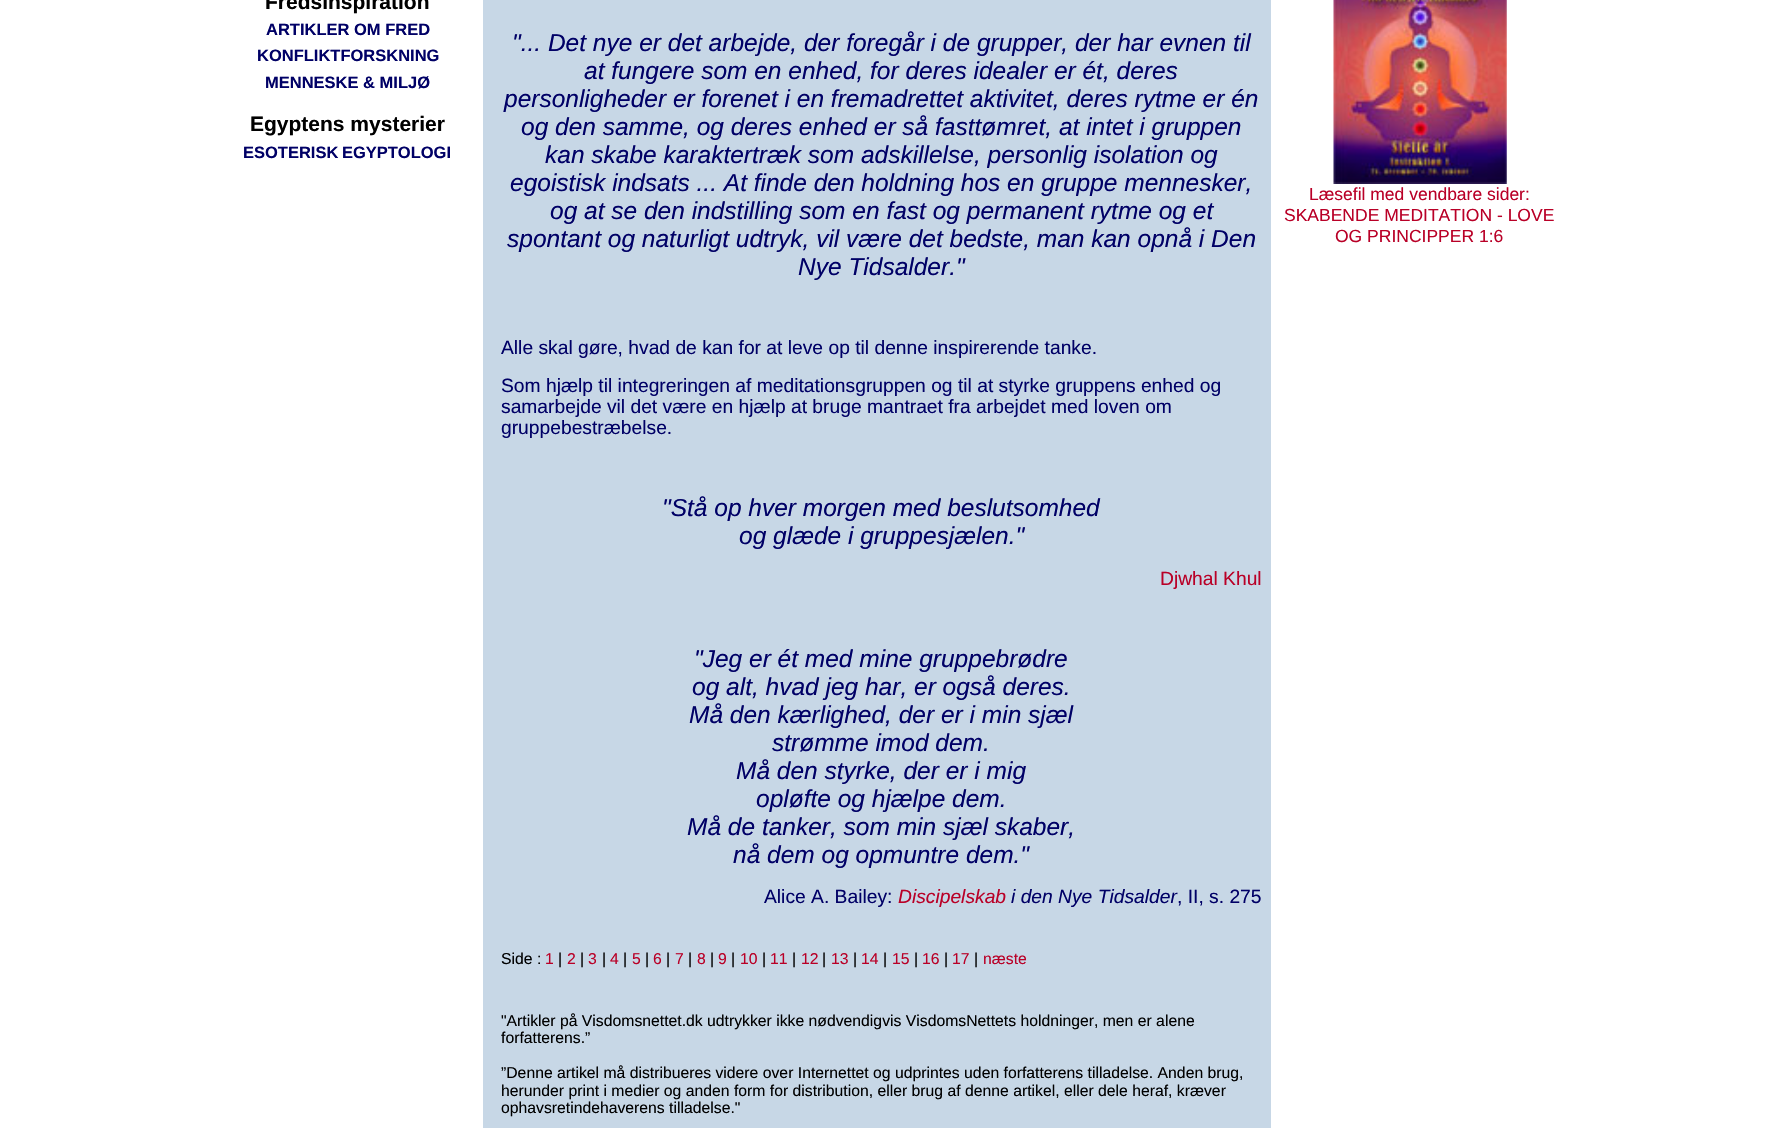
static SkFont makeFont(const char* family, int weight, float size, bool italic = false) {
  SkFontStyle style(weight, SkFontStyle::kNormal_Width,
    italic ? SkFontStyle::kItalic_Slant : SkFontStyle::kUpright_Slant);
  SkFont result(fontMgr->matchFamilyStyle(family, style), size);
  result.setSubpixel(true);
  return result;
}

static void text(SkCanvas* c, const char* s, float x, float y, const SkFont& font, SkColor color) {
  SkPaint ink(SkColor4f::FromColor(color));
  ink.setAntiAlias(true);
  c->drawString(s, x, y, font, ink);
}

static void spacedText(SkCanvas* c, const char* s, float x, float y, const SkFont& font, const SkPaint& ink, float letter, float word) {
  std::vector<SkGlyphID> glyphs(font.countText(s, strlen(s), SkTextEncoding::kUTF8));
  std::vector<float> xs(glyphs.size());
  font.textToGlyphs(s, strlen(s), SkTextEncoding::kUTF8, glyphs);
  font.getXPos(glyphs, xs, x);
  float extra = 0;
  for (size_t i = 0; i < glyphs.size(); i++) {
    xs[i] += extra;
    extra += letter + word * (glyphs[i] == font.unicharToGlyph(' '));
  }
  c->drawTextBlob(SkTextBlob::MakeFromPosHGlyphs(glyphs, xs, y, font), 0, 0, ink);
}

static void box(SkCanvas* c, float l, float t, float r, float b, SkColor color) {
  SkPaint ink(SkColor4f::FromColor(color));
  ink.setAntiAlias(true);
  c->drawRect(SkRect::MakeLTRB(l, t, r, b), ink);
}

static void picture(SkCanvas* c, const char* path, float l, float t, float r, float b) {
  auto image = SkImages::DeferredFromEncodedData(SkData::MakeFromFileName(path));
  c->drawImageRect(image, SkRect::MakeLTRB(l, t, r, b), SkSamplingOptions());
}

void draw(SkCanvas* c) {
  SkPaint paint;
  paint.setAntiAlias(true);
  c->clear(0xffffffff);
  SkFont face1 = makeFont("Liberation Sans", 700, 21);
  text(c, "Fredsinspiration", 265, 9, face1, 0xff000000);
  SkFont face2 = makeFont("Liberation Sans", 700, 16.5f);
  text(c, "ARTIKLER OM FRED", 266, 35, face2, 0xff000066);
  text(c, "KONFLIKTFORSKNING", 257, 61, face2, 0xff000066);
  text(c, "MENNESKE & MILJØ", 265, 88, face2, 0xff000066);
  text(c, "Egyptens mysterier", 250, 131, face1, 0xff000000);
  paint.setColor(0xff000066);
  spacedText(c, "ESOTERISK EGYPTOLOGI", 243, 158, face2, paint, 0, -1);
  box(c, 483, 0, 1271, 1128, 0xffc7d7e6);
  SkFont face3 = makeFont("Liberation Sans", 400, 24.5f, true);
  text(c, "\"... Det nye er det arbejde, der foregår i de grupper, der har evnen til", 512, 51, face3, 0xff000066);
  text(c, "at fungere som en enhed, for deres idealer er ét, deres", 584, 79, face3, 0xff000066);
  text(c, "personligheder er forenet i en fremadrettet aktivitet, deres rytme er én", 504, 107, face3, 0xff000066);
  text(c, "og den samme, og deres enhed er så fasttømret, at intet i gruppen", 521, 135, face3, 0xff000066);
  text(c, "kan skabe karaktertræk som adskillelse, personlig isolation og", 545, 163, face3, 0xff000066);
  text(c, "egoistisk indsats ... At finde den holdning hos en gruppe mennesker,", 510, 191, face3, 0xff000066);
  text(c, "og at se den indstilling som en fast og permanent rytme og et", 550, 219, face3, 0xff000066);
  text(c, "spontant og naturligt udtryk, vil være det bedste, man kan opnå i Den", 507, 247, face3, 0xff000066);
  text(c, "Nye Tidsalder.\"", 798, 275, face3, 0xff000066);
  SkFont face4 = makeFont("Liberation Sans", 400, 19.25f);
  text(c, "Alle skal gøre, hvad de kan for at leve op til denne inspirerende tanke.", 501, 354, face4, 0xff000066);
  text(c, "Som hjælp til integreringen af meditationsgruppen og til at styrke gruppens enhed og", 501, 392, face4, 0xff000066);
  text(c, "samarbejde vil det være en hjælp at bruge mantraet fra arbejdet med loven om", 501, 413, face4, 0xff000066);
  text(c, "gruppebestræbelse.", 501, 434, face4, 0xff000066);
  text(c, "\"Stå op hver morgen med beslutsomhed", 662, 516, face3, 0xff000066);
  text(c, "og glæde i gruppesjælen.\"", 739, 544, face3, 0xff000066);
  text(c, "Djwhal Khul", 1160, 585, face4, 0xffb90027);
  text(c, "\"Jeg er ét med mine gruppebrødre", 694, 667, face3, 0xff000066);
  text(c, "og alt, hvad jeg har, er også deres.", 692, 695, face3, 0xff000066);
  text(c, "Må den kærlighed, der er i min sjæl", 689, 723, face3, 0xff000066);
  text(c, "strømme imod dem.", 772, 751, face3, 0xff000066);
  text(c, "Må den styrke, der er i mig", 736, 779, face3, 0xff000066);
  text(c, "opløfte og hjælpe dem.", 756, 807, face3, 0xff000066);
  text(c, "Må de tanker, som min sjæl skaber,", 687, 835, face3, 0xff000066);
  text(c, "nå dem og opmuntre dem.\"", 733, 863, face3, 0xff000066);
  text(c, "Alice A. Bailey:", 764, 903, face4, 0xff000066);
  SkFont face5 = makeFont("Liberation Sans", 400, 19.25f, true);
  text(c, "Discipelskab", 898, 903, face5, 0xffb90027);
  text(c, "i den Nye Tidsalder", 1011, 903, face5, 0xff000066);
  text(c, ", II, s. 275", 1177, 903, face4, 0xff000066);
  SkFont face6 = makeFont("Liberation Sans", 400, 15.75f);
  text(c, "Side :", 501, 964, face6, 0xff000000);
  text(c, "1", 545, 964, face6, 0xffb90027);
  text(c, "|", 558, 964, face6, 0xff000000);
  text(c, "2", 567, 964, face6, 0xffb90027);
  text(c, "|", 580, 964, face6, 0xff000000);
  text(c, "3", 588, 964, face6, 0xffb90027);
  text(c, "|", 602, 964, face6, 0xff000000);
  text(c, "4", 610, 964, face6, 0xffb90027);
  text(c, "|", 623, 964, face6, 0xff000000);
  text(c, "5", 632, 964, face6, 0xffb90027);
  text(c, "|", 645, 964, face6, 0xff000000);
  text(c, "6", 653, 964, face6, 0xffb90027);
  text(c, "|", 666, 964, face6, 0xff000000);
  text(c, "7", 675, 964, face6, 0xffb90027);
  text(c, "|", 688, 964, face6, 0xff000000);
  text(c, "8", 697, 964, face6, 0xffb90027);
  text(c, "|", 710, 964, face6, 0xff000000);
  text(c, "9", 718, 964, face6, 0xffb90027);
  text(c, "|", 731, 964, face6, 0xff000000);
  text(c, "10", 740, 964, face6, 0xffb90027);
  text(c, "|", 762, 964, face6, 0xff000000);
  text(c, "11", 770, 964, face6, 0xffb90027);
  text(c, "|", 792, 964, face6, 0xff000000);
  text(c, "12", 801, 964, face6, 0xffb90027);
  text(c, "|", 822, 964, face6, 0xff000000);
  text(c, "13", 831, 964, face6, 0xffb90027);
  text(c, "|", 853, 964, face6, 0xff000000);
  text(c, "14", 861, 964, face6, 0xffb90027);
  text(c, "|", 883, 964, face6, 0xff000000);
  text(c, "15", 892, 964, face6, 0xffb90027);
  text(c, "|", 914, 964, face6, 0xff000000);
  text(c, "16", 922, 964, face6, 0xffb90027);
  text(c, "|", 944, 964, face6, 0xff000000);
  text(c, "17", 952, 964, face6, 0xffb90027);
  text(c, "|", 974, 964, face6, 0xff000000);
  text(c, "næste", 983, 964, face6, 0xffb90027);
  text(c, "\"Artikler på Visdomsnettet.dk udtrykker ikke nødvendigvis VisdomsNettets holdninger, men er alene", 501, 1026, face6, 0xff000000);
  text(c, "forfatterens.”", 501, 1043, face6, 0xff000000);
  text(c, "”Denne artikel må distribueres videre over Internettet og udprintes uden forfatterens tilladelse. Anden brug,", 501, 1078, face6, 0xff000000);
  text(c, "herunder print i medier og anden form for distribution, eller brug af denne artikel, eller dele heraf, kræver", 501, 1096, face6, 0xff000000);
  text(c, "ophavsretindehaverens tilladelse.\"", 501, 1113, face6, 0xff000000);
  picture(c, "img_01.png", 1333, 0, 1507, 184);
  SkFont face7 = makeFont("Liberation Sans", 400, 17.5f);
  text(c, "Læsefil med vendbare sider:", 1309, 200, face7, 0xffb90027);
  text(c, "SKABENDE MEDITATION - LOVE", 1284, 221, face7, 0xffb90027);
  text(c, "OG PRINCIPPER 1:6", 1335, 242, face7, 0xffb90027);
}
